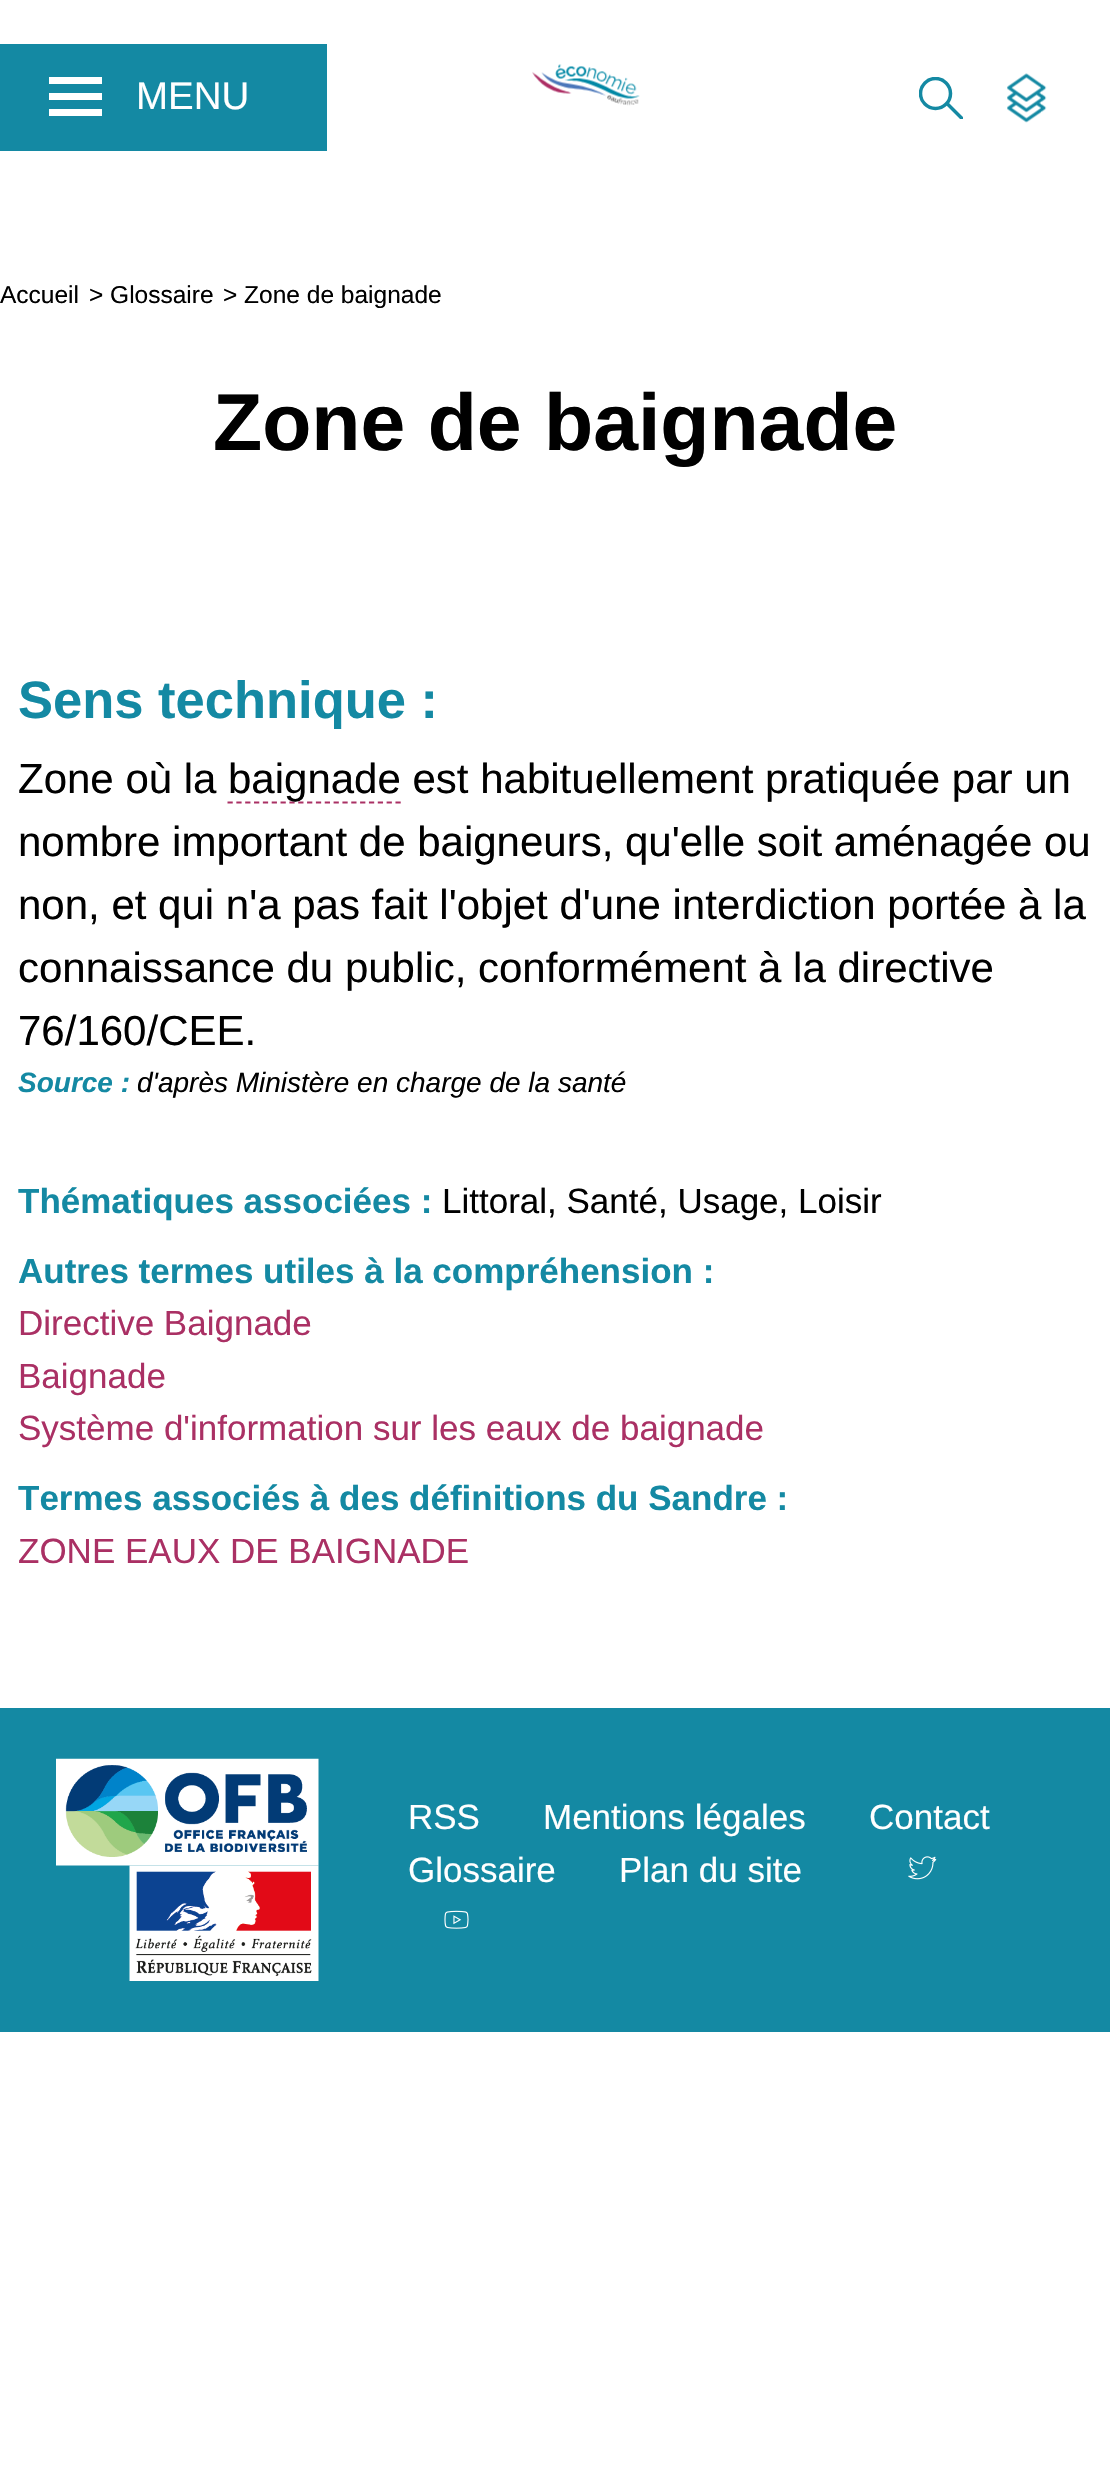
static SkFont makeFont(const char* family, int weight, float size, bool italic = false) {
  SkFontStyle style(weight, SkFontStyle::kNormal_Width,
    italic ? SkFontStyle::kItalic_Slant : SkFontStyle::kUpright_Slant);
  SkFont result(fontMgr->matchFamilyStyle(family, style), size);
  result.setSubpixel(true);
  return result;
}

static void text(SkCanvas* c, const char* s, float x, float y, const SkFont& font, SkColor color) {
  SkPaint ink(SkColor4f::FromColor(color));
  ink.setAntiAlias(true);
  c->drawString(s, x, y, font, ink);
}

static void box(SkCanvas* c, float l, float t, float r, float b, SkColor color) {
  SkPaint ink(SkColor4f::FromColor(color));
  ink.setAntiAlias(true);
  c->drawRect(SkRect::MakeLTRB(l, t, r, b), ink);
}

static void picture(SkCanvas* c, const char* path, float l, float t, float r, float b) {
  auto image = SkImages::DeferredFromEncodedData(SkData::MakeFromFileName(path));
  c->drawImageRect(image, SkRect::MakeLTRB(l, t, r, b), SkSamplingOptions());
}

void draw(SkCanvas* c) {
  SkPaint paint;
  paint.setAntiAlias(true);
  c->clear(0xffffffff);
  box(c, 0, 44, 327, 151, 0xff1489a3);
  box(c, 49, 77, 102, 84, 0xffffffff);
  box(c, 49, 93, 102, 100, 0xffffffff);
  box(c, 49, 109, 102, 116, 0xffffffff);
  SkFont face1 = makeFont("Liberation Sans", 400, 38.5f);
  text(c, "MENU", 136, 109, face1, 0xffffffff);
  picture(c, "img_01.png", 532, 64, 640, 106);
  c->save();
  c->clipRect(SkRect::MakeLTRB(919, 77, 963, 119));
  paint.setStyle(SkPaint::kStroke_Style);
  paint.setStrokeWidth(3.5f);
  paint.setColor(0xff1489a3);
  c->drawCircle(935.5f, 93.5f, 15, paint);
  paint.setStrokeCap(SkPaint::kSquare_Cap);
  c->drawPath(SkPathBuilder().moveTo(963, 119.5f).lineTo(947, 103.5f).close().detach(), paint);
  c->restore();
  picture(c, "img_02.png", 1007, 73, 1047, 123);
  SkFont face2 = makeFont("Liberation Sans", 400, 24.5f);
  text(c, "Accueil", 0, 303, face2, 0xff000000);
  text(c, "> Glossaire", 89, 303, face2, 0xff000000);
  text(c, "> Zone de baignade", 223, 303, face2, 0xff000000);
  SkFont face3 = makeFont("Liberation Sans", 700, 80.5f);
  text(c, "Zone de baignade", 213, 450, face3, 0xff000000);
  SkFont face4 = makeFont("Liberation Sans", 700, 52.5f);
  text(c, "Sens technique :", 18, 718, face4, 0xff1489a3);
  SkFont face5 = makeFont("Liberation Sans", 400, 42);
  text(c, "Zone où la", 18, 793, face5, 0xff000000);
  paint.setStrokeWidth(1.8f);
  paint.setStrokeCap(SkPaint::kButt_Cap);
  paint.setColor(0xffaa3064);
  paint.setPathEffect(SkDashPathEffect::Make({{5.25f, 3.59f}}, 0));
  c->drawPath(SkPathBuilder().moveTo(227.5f, 802.5f).lineTo(401, 802.5f).detach(), paint);
  paint.setPathEffect(nullptr);
  text(c, "baignade est habituellement pratiquée par un", 228, 793, face5, 0xff000000);
  text(c, "nombre important de baigneurs, qu'elle soit aménagée ou", 18, 856, face5, 0xff000000);
  text(c, "non, et qui n'a pas fait l'objet d'une interdiction portée à la", 18, 919, face5, 0xff000000);
  text(c, "connaissance du public, conformément à la directive", 18, 982, face5, 0xff000000);
  text(c, "76/160/CEE.", 18, 1045, face5, 0xff000000);
  SkFont face6 = makeFont("Liberation Sans", 700, 28, true);
  text(c, "Source :", 18, 1092, face6, 0xff1489a3);
  SkFont face7 = makeFont("Liberation Sans", 400, 28, true);
  text(c, "d'après Ministère en charge de la santé", 137, 1092, face7, 0xff000000);
  SkFont face8 = makeFont("Liberation Sans", 700, 35);
  text(c, "Thématiques associées :", 18, 1213, face8, 0xff1489a3);
  SkFont face9 = makeFont("Liberation Sans", 400, 35);
  text(c, "Littoral, Santé, Usage, Loisir", 442, 1213, face9, 0xff000000);
  text(c, "Autres termes utiles à la compréhension :", 18, 1283, face8, 0xff1489a3);
  text(c, "Directive Baignade", 18, 1335, face9, 0xffaa3064);
  text(c, "Baignade", 18, 1388, face9, 0xffaa3064);
  text(c, "Système d'information sur les eaux de baignade", 18, 1440, face9, 0xffaa3064);
  text(c, "Termes associés à des définitions du Sandre :", 18, 1510, face8, 0xff1489a3);
  text(c, "ZONE EAUX DE BAIGNADE", 18, 1563, face9, 0xffaa3064);
  box(c, 0, 1708, 1110, 2032, 0xff1489a3);
  picture(c, "img_03.png", 56, 1758, 319, 1866);
  picture(c, "img_04.png", 129, 1865, 319, 1981);
  text(c, "RSS", 408, 1829, face9, 0xffffffff);
  text(c, "Mentions légales", 543, 1829, face9, 0xffffffff);
  text(c, "Contact", 869, 1829, face9, 0xffffffff);
  text(c, "Glossaire", 408, 1882, face9, 0xffffffff);
  picture(c, "img_05.png", 908, 1856, 937, 1880);
  picture(c, "img_06.png", 444, 1910, 469, 1929);
  text(c, "Plan du site", 619, 1882, face9, 0xffffffff);
}
